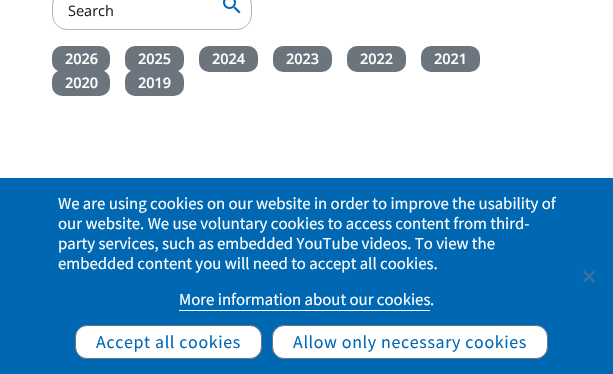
static SkFont makeFont(const char* family, int weight, float size, bool italic = false) {
  SkFontStyle style(weight, SkFontStyle::kNormal_Width,
    italic ? SkFontStyle::kItalic_Slant : SkFontStyle::kUpright_Slant);
  SkFont result(fontMgr->matchFamilyStyle(family, style), size);
  result.setSubpixel(true);
  return result;
}

static void text(SkCanvas* c, const char* s, float x, float y, const SkFont& font, SkColor color) {
  SkPaint ink(SkColor4f::FromColor(color));
  ink.setAntiAlias(true);
  c->drawString(s, x, y, font, ink);
}

static void spacedText(SkCanvas* c, const char* s, float x, float y, const SkFont& font, const SkPaint& ink, float letter, float word) {
  std::vector<SkGlyphID> glyphs(font.countText(s, strlen(s), SkTextEncoding::kUTF8));
  std::vector<float> xs(glyphs.size());
  font.textToGlyphs(s, strlen(s), SkTextEncoding::kUTF8, glyphs);
  font.getXPos(glyphs, xs, x);
  float extra = 0;
  for (size_t i = 0; i < glyphs.size(); i++) {
    xs[i] += extra;
    extra += letter + word * (glyphs[i] == font.unicharToGlyph(' '));
  }
  c->drawTextBlob(SkTextBlob::MakeFromPosHGlyphs(glyphs, xs, y, font), 0, 0, ink);
}

static void box(SkCanvas* c, float l, float t, float r, float b, SkColor color) {
  SkPaint ink(SkColor4f::FromColor(color));
  ink.setAntiAlias(true);
  c->drawRect(SkRect::MakeLTRB(l, t, r, b), ink);
}

static void roundBox(SkCanvas* c, float l, float t, float r, float b, float radius, SkColor color) {
  SkPaint ink(SkColor4f::FromColor(color));
  ink.setAntiAlias(true);
  c->drawRoundRect(SkRect::MakeLTRB(l, t, r, b), radius, radius, ink);
}

static void picture(SkCanvas* c, const char* path, float l, float t, float r, float b) {
  auto image = SkImages::DeferredFromEncodedData(SkData::MakeFromFileName(path));
  c->drawImageRect(image, SkRect::MakeLTRB(l, t, r, b), SkSamplingOptions());
}

void draw(SkCanvas* c) {
  SkPaint paint;
  paint.setAntiAlias(true);
  c->clear(0xffffffff);
  paint.setStyle(SkPaint::kStroke_Style);
  paint.setStrokeWidth(1);
  paint.setColor(0xffadb5bd);
  c->drawRoundRect(SkRect::MakeLTRB(52.5f, -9.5f, 251.5f, 29.5f), 14.5f, 14.5f, paint);
  SkFont face1 = makeFont("Open Sans", 400, 14.5f);
  text(c, "Search", 68, 16, face1, 0xff212529);
  picture(c, "img_01.png", 223, 0, 241, 14);
  roundBox(c, 52, 46, 110, 72, 10, 0xff6c757d);
  SkFont face2 = makeFont("Open Sans", 600, 14.5f);
  text(c, "2026", 65, 64, face2, 0xffffffff);
  roundBox(c, 125, 46, 184, 72, 10, 0xff6c757d);
  text(c, "2025", 138, 64, face2, 0xffffffff);
  roundBox(c, 199, 46, 258, 72, 10, 0xff6c757d);
  text(c, "2024", 212, 64, face2, 0xffffffff);
  roundBox(c, 273, 46, 332, 72, 10, 0xff6c757d);
  text(c, "2023", 286, 64, face2, 0xffffffff);
  roundBox(c, 347, 46, 406, 72, 10, 0xff6c757d);
  text(c, "2022", 360, 64, face2, 0xffffffff);
  roundBox(c, 421, 46, 480, 72, 10, 0xff6c757d);
  text(c, "2021", 434, 64, face2, 0xffffffff);
  roundBox(c, 52, 70, 110, 96, 10, 0xff6c757d);
  text(c, "2020", 65, 88, face2, 0xffffffff);
  roundBox(c, 125, 70, 184, 96, 10, 0xff6c757d);
  text(c, "2019", 138, 88, face2, 0xffffffff);
  box(c, 0, 178, 613, 374, 0xff0068b3);
  SkFont face3 = makeFont("Noto Sans SC", 400, 15);
  text(c, "We are using cookies on our website in order to improve the usability of", 58, 209, face3, 0xffffffff);
  text(c, "our website. We use voluntary cookies to access content from third-", 58, 229, face3, 0xffffffff);
  text(c, "party services, such as embedded YouTube videos. To view the", 58, 249, face3, 0xffffffff);
  text(c, "embedded content you will need to accept all cookies.", 58, 269, face3, 0xffffffff);
  text(c, "More information about our cookies", 179, 305, face3, 0xffffffff);
  box(c, 179, 310, 430, 311, 0xffffffff);
  text(c, ".", 430, 305, face3, 0xffffffff);
  paint.setStyle(SkPaint::kFill_Style);
  paint.setColor(0xff40749a);
  c->drawPath(SkPathBuilder().moveTo(593.5f, 270.5f).lineTo(595, 272).lineTo(584.5f, 282.5f).lineTo(583, 281).close().detach(), paint);
  c->drawPath(SkPathBuilder().moveTo(583, 272).lineTo(584.5f, 270.5f).lineTo(595, 281).lineTo(593.5f, 282.5f).close().detach(), paint);
  paint.setColor(0xffffffff);
  c->drawRoundRect(SkRect::MakeLTRB(75.5f, 325.5f, 261.5f, 358.5f), 11.5f, 11.5f, paint);
  paint.setStyle(SkPaint::kStroke_Style);
  paint.setColor(0xff6c757d);
  c->drawRoundRect(SkRect::MakeLTRB(75.5f, 325.5f, 261.5f, 358.5f), 11.5f, 11.5f, paint);
  SkFont face4 = makeFont("Noto Sans SC", 400, 16);
  paint.setStyle(SkPaint::kFill_Style);
  paint.setColor(0xff0068b3);
  spacedText(c, "Accept all cookies", 96, 348, face4, paint, 0.65f, 0);
  paint.setColor(0xffffffff);
  c->drawRoundRect(SkRect::MakeLTRB(272.5f, 325.5f, 547.5f, 358.5f), 11.5f, 11.5f, paint);
  paint.setStyle(SkPaint::kStroke_Style);
  paint.setColor(0xff6c757d);
  c->drawRoundRect(SkRect::MakeLTRB(272.5f, 325.5f, 547.5f, 358.5f), 11.5f, 11.5f, paint);
  paint.setStyle(SkPaint::kFill_Style);
  paint.setColor(0xff0068b3);
  spacedText(c, "Allow only necessary cookies", 293, 348, face4, paint, 0.65f, 0);
}
